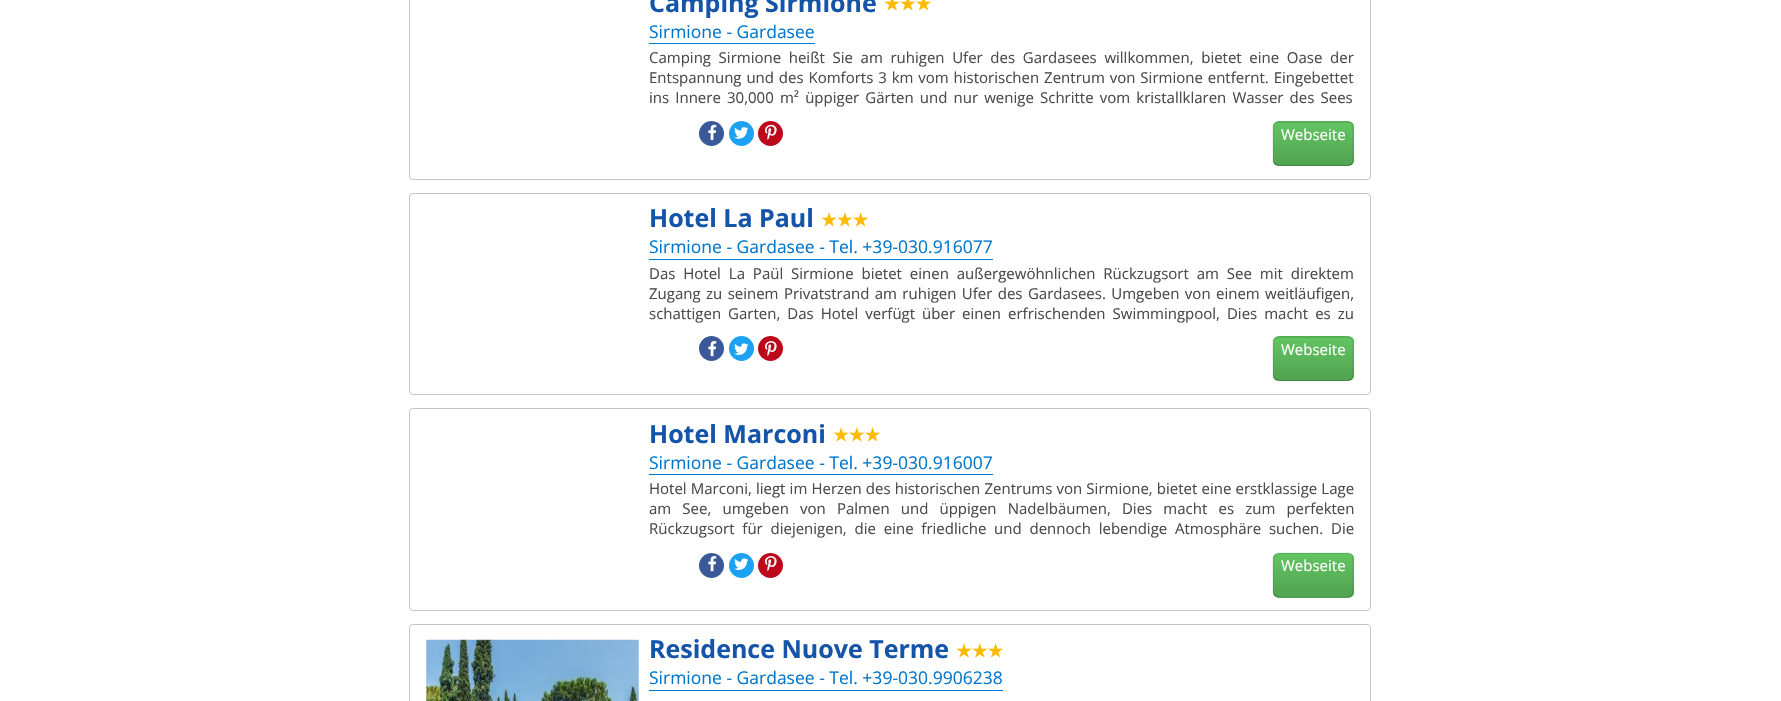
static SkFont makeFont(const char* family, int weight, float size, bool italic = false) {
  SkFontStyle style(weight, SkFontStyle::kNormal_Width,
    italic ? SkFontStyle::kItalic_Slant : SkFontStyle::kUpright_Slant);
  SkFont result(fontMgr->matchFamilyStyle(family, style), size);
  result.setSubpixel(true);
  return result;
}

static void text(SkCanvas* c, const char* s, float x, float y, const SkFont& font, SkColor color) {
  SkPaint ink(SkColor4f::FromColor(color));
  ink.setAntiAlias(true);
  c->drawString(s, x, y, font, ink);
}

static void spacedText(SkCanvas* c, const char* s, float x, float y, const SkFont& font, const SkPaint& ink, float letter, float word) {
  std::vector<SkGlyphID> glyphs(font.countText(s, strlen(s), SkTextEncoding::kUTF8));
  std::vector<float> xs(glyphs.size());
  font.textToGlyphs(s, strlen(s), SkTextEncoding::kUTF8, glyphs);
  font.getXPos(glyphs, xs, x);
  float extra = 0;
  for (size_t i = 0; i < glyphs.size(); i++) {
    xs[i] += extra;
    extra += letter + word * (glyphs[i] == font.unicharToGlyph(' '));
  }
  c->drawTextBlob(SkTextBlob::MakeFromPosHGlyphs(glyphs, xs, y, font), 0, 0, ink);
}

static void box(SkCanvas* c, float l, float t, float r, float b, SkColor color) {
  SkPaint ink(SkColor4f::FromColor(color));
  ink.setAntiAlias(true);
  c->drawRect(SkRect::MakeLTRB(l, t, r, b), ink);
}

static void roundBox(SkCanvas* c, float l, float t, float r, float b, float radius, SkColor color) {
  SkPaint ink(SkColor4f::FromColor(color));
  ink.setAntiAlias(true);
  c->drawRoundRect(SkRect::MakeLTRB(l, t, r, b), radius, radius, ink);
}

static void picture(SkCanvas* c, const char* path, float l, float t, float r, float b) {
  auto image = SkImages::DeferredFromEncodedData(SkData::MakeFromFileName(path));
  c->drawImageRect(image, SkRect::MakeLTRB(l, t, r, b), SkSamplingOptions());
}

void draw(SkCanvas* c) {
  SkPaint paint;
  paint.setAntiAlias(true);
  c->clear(0xffffffff);
  paint.setStyle(SkPaint::kStroke_Style);
  paint.setStrokeWidth(1);
  paint.setColor(0xffc6c6c6);
  c->drawRoundRect(SkRect::MakeLTRB(409.5f, -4.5f, 1370.5f, 179.5f), 3.5f, 3.5f, paint);
  SkFont face1 = makeFont("Open Sans", 700, 25);
  text(c, "Camping Sirmione", 649, 12, face1, 0xff1454a9);
  SkFont face2 = makeFont("DejaVu Sans", 700, 17.5f);
  text(c, "★★★", 884, 10, face2, 0xfffeba02);
  SkFont face3 = makeFont("Open Sans", 400, 17.5f);
  text(c, "Sirmione - Gardasee", 649, 38, face3, 0xff0077cc);
  box(c, 649, 43, 815, 44, 0xff0077cc);
  SkFont face4 = makeFont("Open Sans", 400, 15);
  paint.setStyle(SkPaint::kFill_Style);
  paint.setColor(0xff4a4a4a);
  spacedText(c, "Camping Sirmione heißt Sie am ruhigen Ufer des Gardasees willkommen, bietet eine Oase der", 649, 63, face4, paint, 0, 3.75f);
  spacedText(c, "Entspannung und des Komforts 3 km vom historischen Zentrum von Sirmione entfernt. Eingebettet", 649, 83, face4, paint, 0, 1);
  spacedText(c, "ins Innere 30,000 m² üppiger Gärten und nur wenige Schritte vom kristallklaren Wasser des Sees", 649, 103, face4, paint, 0, 2.25f);
  paint.setColor(0xff3b5998);
  c->drawCircle(711.5f, 133.5f, 12.5f, paint);
  picture(c, "img_01.png", 708, 124, 717, 140);
  paint.setColor(0xff1da1f2);
  c->drawCircle(741.5f, 133.5f, 12.5f, paint);
  picture(c, "img_02.png", 734, 127, 749, 139);
  paint.setColor(0xffbd081c);
  c->drawCircle(770.5f, 133.5f, 12.5f, paint);
  picture(c, "img_03.png", 765, 124, 777, 140);
  roundBox(c, 1273, 121, 1354, 166, 6, 0xff5bb75b);
  c->save();
  c->clipPath(SkPathBuilder().moveTo(1279, 121).lineTo(1348, 121).cubicTo(1351.5f, 121, 1354, 123.5f, 1354, 127).lineTo(1354, 160).cubicTo(1354, 163.5f, 1351.5f, 166, 1348, 166).lineTo(1279, 166).cubicTo(1275.5f, 166, 1273, 163.5f, 1273, 160).lineTo(1273, 127).cubicTo(1273, 123.5f, 1275.5f, 121, 1279, 121).close().detach(), true);
  {
    const SkColor colors[] = {0xff62c462, 0xff51a351};
    const float stops[] = {0, 1};
    const SkPoint ends[] = {{1313, 123}, {1313, 165}};
    paint.setShader(SkGradientShader::MakeLinear(ends, colors, stops, 2, SkTileMode::kClamp));
    paint.setAlpha(255);
  }
  c->drawRect(SkRect::MakeLTRB(1273, 123, 1354, 165), paint);
  c->restore();
  paint.setStyle(SkPaint::kStroke_Style);
  paint.setStrokeWidth(1.2f);
  paint.setShader(nullptr);
  paint.setColor(0x40000000);
  c->drawPath(SkPathBuilder().moveTo(1351.5f, 164).cubicTo(1350.5f, 165, 1349, 165.5f, 1347.5f, 165.5f).lineTo(1279, 165.5f).cubicTo(1277.5f, 165.5f, 1276, 165, 1275, 164).detach(), paint);
  paint.setColor(0x1a000000);
  c->drawPath(SkPathBuilder().moveTo(1275, 164).cubicTo(1273.5f, 163, 1273, 161.5f, 1273, 160).lineTo(1273, 127.5f).cubicTo(1273, 126, 1273.5f, 124.5f, 1275, 123.5f).cubicTo(1276, 122.5f, 1277.5f, 122, 1279, 122).lineTo(1347.5f, 122).cubicTo(1349, 122, 1350.5f, 122.5f, 1351.5f, 123.5f).cubicTo(1352.5f, 124.5f, 1353, 126, 1353, 127.5f).lineTo(1353, 160).cubicTo(1353, 161.5f, 1352.5f, 163, 1351.5f, 164).detach(), paint);
  text(c, "Webseite", 1281, 140, face4, 0xffffffff);
  paint.setStrokeWidth(1);
  paint.setColor(0xffc6c6c6);
  c->drawRoundRect(SkRect::MakeLTRB(409.5f, 193.5f, 1370.5f, 394.5f), 3.5f, 3.5f, paint);
  text(c, "Hotel La Paul", 649, 227, face1, 0xff1454a9);
  text(c, "★★★", 821, 226, face2, 0xfffeba02);
  text(c, "Sirmione - Gardasee - Tel. +39-030.916077", 649, 253, face3, 0xff0077cc);
  box(c, 649, 259, 993, 260, 0xff0077cc);
  paint.setStyle(SkPaint::kFill_Style);
  paint.setColor(0xff4a4a4a);
  spacedText(c, "Das Hotel La Paül Sirmione bietet einen außergewöhnlichen Rückzugsort am See mit direktem", 649, 279, face4, paint, 0, 4);
  spacedText(c, "Zugang zu seinem Privatstrand am ruhigen Ufer des Gardasees. Umgeben von einem weitläufigen,", 649, 299, face4, paint, 0, 1.5f);
  spacedText(c, "schattigen Garten, Das Hotel verfügt über einen erfrischenden Swimmingpool, Dies macht es zu", 649, 319, face4, paint, 0, 3.1f);
  paint.setColor(0xff3b5998);
  c->drawCircle(711.5f, 348.5f, 12.5f, paint);
  picture(c, "img_04.png", 708, 341, 717, 357);
  paint.setColor(0xff1da1f2);
  c->drawCircle(741.5f, 348.5f, 12.5f, paint);
  picture(c, "img_05.png", 734, 343, 749, 355);
  paint.setColor(0xffbd081c);
  c->drawCircle(770.5f, 348.5f, 12.5f, paint);
  picture(c, "img_06.png", 765, 341, 777, 357);
  roundBox(c, 1273, 336, 1354, 381, 6, 0xff5bb75b);
  c->save();
  c->clipPath(SkPathBuilder().moveTo(1279, 336).lineTo(1348, 336).cubicTo(1351.5f, 336, 1354, 338.5f, 1354, 342).lineTo(1354, 375).cubicTo(1354, 378.5f, 1351.5f, 381, 1348, 381).lineTo(1279, 381).cubicTo(1275.5f, 381, 1273, 378.5f, 1273, 375).lineTo(1273, 342).cubicTo(1273, 338.5f, 1275.5f, 336, 1279, 336).close().detach(), true);
  {
    const SkColor colors[] = {0xff62c462, 0xff51a351};
    const float stops[] = {0, 1};
    const SkPoint ends[] = {{1313, 338}, {1313, 380}};
    paint.setShader(SkGradientShader::MakeLinear(ends, colors, stops, 2, SkTileMode::kClamp));
    paint.setAlpha(255);
  }
  c->drawRect(SkRect::MakeLTRB(1273, 338, 1354, 380), paint);
  c->restore();
  paint.setStyle(SkPaint::kStroke_Style);
  paint.setStrokeWidth(1.2f);
  paint.setShader(nullptr);
  paint.setColor(0x40000000);
  c->drawPath(SkPathBuilder().moveTo(1351.5f, 379).cubicTo(1350.5f, 380, 1349, 380.5f, 1347.5f, 380.5f).lineTo(1279, 380.5f).cubicTo(1277.5f, 380.5f, 1276, 380, 1275, 379).detach(), paint);
  paint.setColor(0x1a000000);
  c->drawPath(SkPathBuilder().moveTo(1275, 379).cubicTo(1273.5f, 378, 1273, 376.5f, 1273, 375).lineTo(1273, 342.5f).cubicTo(1273, 341, 1273.5f, 339.5f, 1275, 338.5f).cubicTo(1276, 337.5f, 1277.5f, 337, 1279, 337).lineTo(1347.5f, 337).cubicTo(1349, 337, 1350.5f, 337.5f, 1351.5f, 338.5f).cubicTo(1352.5f, 339.5f, 1353, 341, 1353, 342.5f).lineTo(1353, 375).cubicTo(1353, 376.5f, 1352.5f, 378, 1351.5f, 379).detach(), paint);
  text(c, "Webseite", 1281, 355, face4, 0xffffffff);
  paint.setStrokeWidth(1);
  paint.setColor(0xffc6c6c6);
  c->drawRoundRect(SkRect::MakeLTRB(409.5f, 408.5f, 1370.5f, 610.5f), 3.5f, 3.5f, paint);
  text(c, "Hotel Marconi", 649, 443, face1, 0xff1454a9);
  text(c, "★★★", 833, 441, face2, 0xfffeba02);
  text(c, "Sirmione - Gardasee - Tel. +39-030.916007", 649, 469, face3, 0xff0077cc);
  box(c, 649, 474, 993, 475, 0xff0077cc);
  paint.setStyle(SkPaint::kFill_Style);
  paint.setColor(0xff4a4a4a);
  spacedText(c, "Hotel Marconi, liegt im Herzen des historischen Zentrums von Sirmione, bietet eine erstklassige Lage", 649, 494, face4, paint, 0, 0.25f);
  spacedText(c, "am See, umgeben von Palmen und üppigen Nadelbäumen, Dies macht es zum perfekten", 649, 514, face4, paint, 0, 7.25f);
  spacedText(c, "Rückzugsort für diejenigen, die eine friedliche und dennoch lebendige Atmosphäre suchen. Die", 649, 534, face4, paint, 0, 3.9f);
  paint.setColor(0xff3b5998);
  c->drawCircle(711.5f, 565.5f, 12.5f, paint);
  picture(c, "img_04.png", 708, 556, 717, 572);
  paint.setColor(0xff1da1f2);
  c->drawCircle(741.5f, 565.5f, 12.5f, paint);
  picture(c, "img_05.png", 734, 558, 749, 570);
  paint.setColor(0xffbd081c);
  c->drawCircle(770.5f, 565.5f, 12.5f, paint);
  picture(c, "img_06.png", 765, 556, 777, 572);
  roundBox(c, 1273, 553, 1354, 598, 6, 0xff5bb75b);
  c->save();
  c->clipPath(SkPathBuilder().moveTo(1279, 553).lineTo(1348, 553).cubicTo(1351.5f, 553, 1354, 555.5f, 1354, 559).lineTo(1354, 592).cubicTo(1354, 595.5f, 1351.5f, 598, 1348, 598).lineTo(1279, 598).cubicTo(1275.5f, 598, 1273, 595.5f, 1273, 592).lineTo(1273, 559).cubicTo(1273, 555.5f, 1275.5f, 553, 1279, 553).close().detach(), true);
  {
    const SkColor colors[] = {0xff62c462, 0xff51a351};
    const float stops[] = {0, 1};
    const SkPoint ends[] = {{1313, 554}, {1313, 596}};
    paint.setShader(SkGradientShader::MakeLinear(ends, colors, stops, 2, SkTileMode::kClamp));
    paint.setAlpha(255);
  }
  c->drawRect(SkRect::MakeLTRB(1273, 554, 1354, 596), paint);
  c->restore();
  paint.setStyle(SkPaint::kStroke_Style);
  paint.setStrokeWidth(1.2f);
  paint.setShader(nullptr);
  paint.setColor(0x40000000);
  c->drawPath(SkPathBuilder().moveTo(1351.5f, 595).cubicTo(1350.5f, 596.5f, 1349, 597, 1347.5f, 597).lineTo(1279, 597).cubicTo(1277.5f, 597, 1276, 596.5f, 1275, 595).detach(), paint);
  paint.setColor(0x1a000000);
  c->drawPath(SkPathBuilder().moveTo(1275, 595).cubicTo(1273.5f, 594, 1273, 592.5f, 1273, 591).lineTo(1273, 559).cubicTo(1273, 557.5f, 1273.5f, 556, 1275, 555).cubicTo(1276, 553.5f, 1277.5f, 553, 1279, 553).lineTo(1347.5f, 553).cubicTo(1349, 553, 1350.5f, 553.5f, 1351.5f, 555).cubicTo(1352.5f, 556, 1353, 557.5f, 1353, 559).lineTo(1353, 591).cubicTo(1353, 592.5f, 1352.5f, 594, 1351.5f, 595).detach(), paint);
  text(c, "Webseite", 1281, 571, face4, 0xffffffff);
  paint.setStrokeWidth(1);
  paint.setColor(0xffc6c6c6);
  c->drawRoundRect(SkRect::MakeLTRB(409.5f, 624.5f, 1370.5f, 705.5f), 3.5f, 3.5f, paint);
  picture(c, "img_07.png", 426, 639, 639, 701);
  text(c, "Residence Nuove Terme", 649, 658, face1, 0xff1454a9);
  text(c, "★★★", 956, 657, face2, 0xfffeba02);
  text(c, "Sirmione - Gardasee - Tel. +39-030.9906238", 649, 684, face3, 0xff0077cc);
  box(c, 649, 690, 1003, 691, 0xff0077cc);
}
